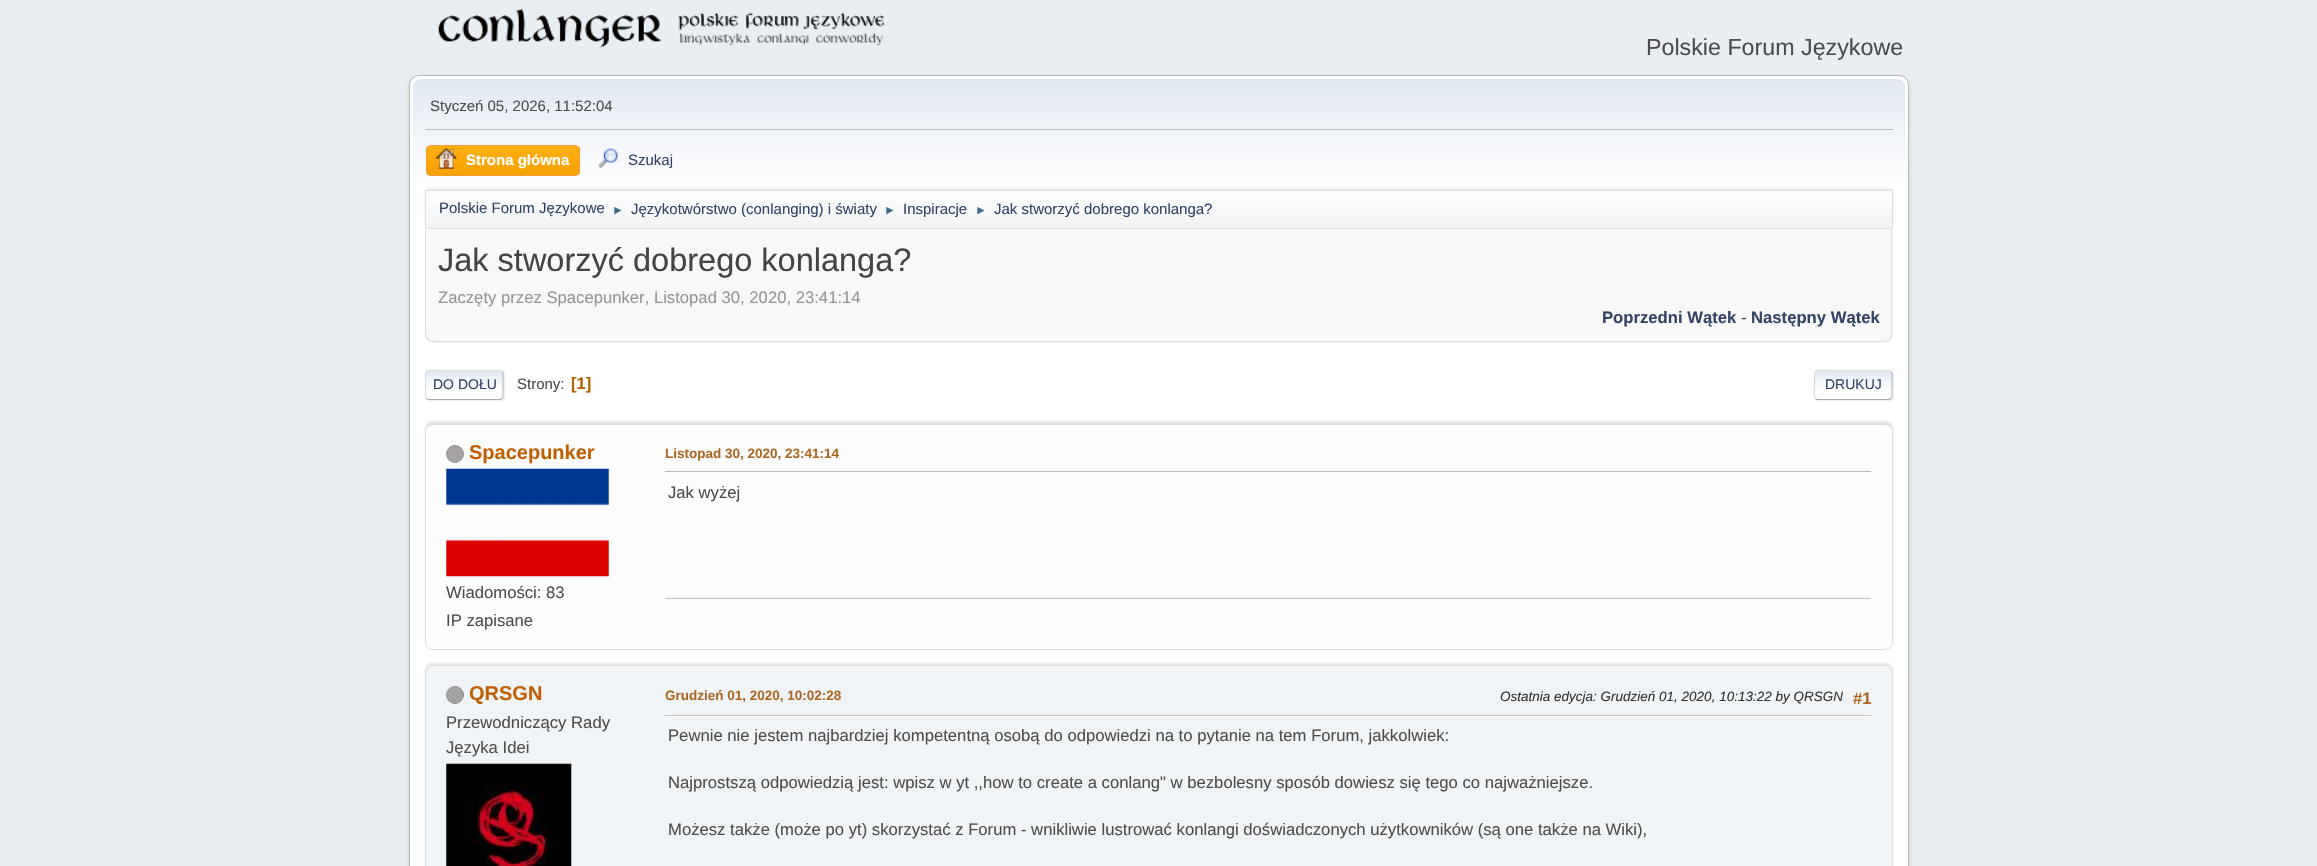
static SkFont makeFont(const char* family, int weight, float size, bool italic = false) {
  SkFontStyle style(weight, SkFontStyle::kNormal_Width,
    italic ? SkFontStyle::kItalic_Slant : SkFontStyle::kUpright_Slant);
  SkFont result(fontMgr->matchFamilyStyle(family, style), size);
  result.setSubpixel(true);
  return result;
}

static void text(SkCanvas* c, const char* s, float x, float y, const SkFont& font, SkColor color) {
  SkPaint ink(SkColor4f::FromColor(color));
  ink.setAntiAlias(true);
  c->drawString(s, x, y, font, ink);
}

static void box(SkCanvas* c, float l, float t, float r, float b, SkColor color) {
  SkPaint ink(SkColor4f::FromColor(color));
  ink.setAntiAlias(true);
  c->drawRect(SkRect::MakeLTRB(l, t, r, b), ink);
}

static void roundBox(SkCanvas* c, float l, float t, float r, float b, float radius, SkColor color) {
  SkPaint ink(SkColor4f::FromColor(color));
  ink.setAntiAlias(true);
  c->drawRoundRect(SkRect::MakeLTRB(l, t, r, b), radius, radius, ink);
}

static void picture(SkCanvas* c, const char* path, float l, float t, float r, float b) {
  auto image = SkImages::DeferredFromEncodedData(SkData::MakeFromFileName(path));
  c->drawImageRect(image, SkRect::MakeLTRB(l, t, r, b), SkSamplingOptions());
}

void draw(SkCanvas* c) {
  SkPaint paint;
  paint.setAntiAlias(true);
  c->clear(0xffe9eef2);
  picture(c, "img_01.png", 438, 8, 884, 48);
  SkFont face1 = makeFont("Liberation Sans", 400, 23.25f);
  text(c, "Polskie Forum Językowe", 1646, 55, face1, 0xff4d4d4d);
  paint.setColor(0x24000000);
  paint.setMaskFilter(SkMaskFilter::MakeBlur(kNormal_SkBlurStyle, 2));
  c->drawRoundRect(SkRect::MakeLTRB(409, 78, 1909, 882), 10, 10, paint);
  paint.setMaskFilter(nullptr);
  paint.setColor(0xffffffff);
  c->drawRoundRect(SkRect::MakeLTRB(409.5f, 75.5f, 1908.5f, 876.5f), 9.5f, 9.5f, paint);
  paint.setStyle(SkPaint::kStroke_Style);
  paint.setStrokeWidth(1);
  paint.setColor(0xffb8b8b8);
  c->drawRoundRect(SkRect::MakeLTRB(409.5f, 75.5f, 1908.5f, 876.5f), 9.5f, 9.5f, paint);
  paint.setStyle(SkPaint::kFill_Style);
  {
    const SkColor colors[] = {0xffe2e9f3, 0xffffffff};
    const float stops[] = {0, 0.7f};
    const SkPoint ends[] = {{1159, 79}, {1159, 231}};
    paint.setShader(SkGradientShader::MakeLinear(ends, colors, stops, 2, SkTileMode::kClamp));
    paint.setAlpha(255);
  }
  c->drawPath(SkPathBuilder().moveTo(421, 79).lineTo(1897, 79).cubicTo(1901.5f, 79, 1905, 82.5f, 1905, 87).lineTo(1905, 231).lineTo(413, 231).lineTo(413, 87).cubicTo(413, 82.5f, 416.5f, 79, 421, 79).close().detach(), paint);
  box(c, 425, 129, 1893, 130, 0xffbbbbbb);
  SkFont face2 = makeFont("Liberation Sans", 400, 15);
  text(c, "Styczeń 05, 2026, 11:52:04", 430, 111, face2, 0xff4d4d4d);
  c->save();
  c->clipPath(SkPathBuilder().moveTo(431, 145).lineTo(575, 145).cubicTo(578, 145, 580, 147, 580, 150).lineTo(580, 171).cubicTo(580, 174, 578, 176, 575, 176).lineTo(431, 176).cubicTo(428, 176, 426, 174, 426, 171).lineTo(426, 150).cubicTo(426, 147, 428, 145, 431, 145).close().detach(), true);
  {
    const SkColor colors[] = {0xffffae14, 0xfff5a100};
    const float stops[] = {0, 1};
    const SkPoint ends[] = {{503, 146}, {503, 175}};
    paint.setShader(SkGradientShader::MakeLinear(ends, colors, stops, 2, SkTileMode::kClamp));
    paint.setAlpha(255);
  }
  c->drawRect(SkRect::MakeLTRB(426, 146, 580, 175), paint);
  c->restore();
  paint.setStyle(SkPaint::kStroke_Style);
  paint.setShader(nullptr);
  paint.setColor(0xfff49a3a);
  c->drawRoundRect(SkRect::MakeLTRB(426.5f, 145.5f, 579.5f, 175.5f), 4.5f, 4.5f, paint);
  picture(c, "img_02.png", 436, 148, 457, 169);
  SkFont face3 = makeFont("Liberation Sans", 700, 15);
  text(c, "Strona główna", 466, 165, face3, 0xffffffff);
  picture(c, "img_03.png", 598, 148, 618, 168);
  text(c, "Szukaj", 628, 165, face2, 0xff334466);
  paint.setStyle(SkPaint::kFill_Style);
  paint.setColor(0x14000000);
  paint.setMaskFilter(SkMaskFilter::MakeBlur(kNormal_SkBlurStyle, 1));
  c->drawRoundRect(SkRect::MakeLTRB(425, 188, 1893, 226), 2.5f, 2.5f, paint);
  paint.setMaskFilter(nullptr);
  c->save();
  c->clipPath(SkPathBuilder().moveTo(427.5f, 190).lineTo(1890.5f, 190).cubicTo(1892, 190, 1893, 191, 1893, 192.5f).lineTo(1893, 226.5f).cubicTo(1893, 228, 1892, 229, 1890.5f, 229).lineTo(427.5f, 229).cubicTo(426, 229, 425, 228, 425, 226.5f).lineTo(425, 192.5f).cubicTo(425, 191, 426, 190, 427.5f, 190).close().detach(), true);
  {
    const SkColor colors[] = {0xffffffff, 0xfff1f3f5};
    const float stops[] = {0, 0.95f};
    const SkPoint ends[] = {{1159, 191}, {1159, 228}};
    paint.setShader(SkGradientShader::MakeLinear(ends, colors, stops, 2, SkTileMode::kClamp));
    paint.setAlpha(255);
  }
  c->drawRect(SkRect::MakeLTRB(425, 191, 1893, 228), paint);
  c->restore();
  paint.setStyle(SkPaint::kStroke_Style);
  paint.setShader(nullptr);
  paint.setColor(0xffdddddd);
  c->drawRoundRect(SkRect::MakeLTRB(425.5f, 190.5f, 1892.5f, 228.5f), 2, 2, paint);
  text(c, "Polskie Forum Językowe", 439, 213, face2, 0xff334466);
  SkFont face4 = makeFont("Liberation Sans", 400, 12);
  text(c, "►", 612, 214, face4, 0xff3f6b8c);
  text(c, "Językotwórstwo (conlanging) i światy", 631, 214, face2, 0xff334466);
  text(c, "►", 884, 214, face4, 0xff3f6b8c);
  text(c, "Inspiracje", 903, 214, face2, 0xff334466);
  text(c, "►", 975, 214, face4, 0xff3f6b8c);
  text(c, "Jak stworzyć dobrego konlanga?", 994, 214, face2, 0xff334466);
  paint.setStyle(SkPaint::kFill_Style);
  paint.setColor(0xfff8f8f8);
  c->drawPath(SkPathBuilder().moveTo(425, 229).lineTo(1893, 229).lineTo(1893, 334).cubicTo(1893, 339, 1889, 343, 1884, 343).lineTo(434, 343).cubicTo(429, 343, 425, 339, 425, 334).close().detach(), paint);
  paint.setColor(0xffdddddd);
  c->drawPath(SkPathBuilder(SkPathFillType::kEvenOdd).moveTo(425, 229).lineTo(1892, 229).lineTo(1892, 334).cubicTo(1892, 339, 1889, 342, 1884, 342).lineTo(434, 342).cubicTo(429, 342, 425, 339, 425, 334).close().moveTo(426, 229).lineTo(1891, 229).lineTo(1891, 334).cubicTo(1891, 338, 1888, 341, 1884, 341).lineTo(434, 341).cubicTo(430, 341, 426, 338, 426, 334).close().detach(), paint);
  SkFont face5 = makeFont("Liberation Sans", 400, 32.5f);
  text(c, "Jak stworzyć dobrego konlanga?", 438, 271, face5, 0xff444444);
  SkFont face6 = makeFont("Liberation Sans", 400, 16.67f);
  text(c, "Zaczęty przez Spacepunker, Listopad 30, 2020, 23:41:14", 438, 303, face6, 0xff959595);
  SkFont face7 = makeFont("Liberation Sans", 700, 16.67f);
  text(c, "Poprzedni Wątek", 1602, 323, face7, 0xff334466);
  text(c, "-", 1741, 323, face6, 0xff4d4d4d);
  text(c, "Następny Wątek", 1751, 323, face7, 0xff334466);
  paint.setColor(0x91dddddd);
  paint.setMaskFilter(SkMaskFilter::MakeBlur(kNormal_SkBlurStyle, 0.5f));
  c->drawRoundRect(SkRect::MakeLTRB(426, 371, 505, 401), 4, 4, paint);
  paint.setMaskFilter(nullptr);
  roundBox(c, 425, 370, 504, 400, 4, 0xffffffff);
  c->save();
  c->clipPath(SkPathBuilder().moveTo(429, 370).lineTo(500, 370).cubicTo(502, 370, 504, 372, 504, 374).lineTo(504, 396).cubicTo(504, 398, 502, 400, 500, 400).lineTo(429, 400).cubicTo(427, 400, 425, 398, 425, 396).lineTo(425, 374).cubicTo(425, 372, 427, 370, 429, 370).close().detach(), true);
  {
    const SkColor colors[] = {0xffe2e9f3, 0xffffffff};
    const float stops[] = {0, 0.7f};
    const SkPoint ends[] = {{464, 371}, {464, 399}};
    paint.setShader(SkGradientShader::MakeLinear(ends, colors, stops, 2, SkTileMode::kClamp));
    paint.setAlpha(255);
  }
  c->drawRect(SkRect::MakeLTRB(425, 371, 504, 399), paint);
  c->restore();
  paint.setStyle(SkPaint::kStroke_Style);
  paint.setStrokeWidth(1.2f);
  paint.setShader(nullptr);
  paint.setColor(0xffbbbbbb);
  c->drawPath(SkPathBuilder().moveTo(502, 371.5f).cubicTo(503, 372, 503, 373, 503, 374).lineTo(503, 396).cubicTo(503, 397, 503, 398, 502, 398.5f).detach(), paint);
  paint.setColor(0xffaaaaaa);
  c->drawPath(SkPathBuilder().moveTo(502, 398.5f).lineTo(500.5f, 399.5f).lineTo(428.5f, 399.5f).lineTo(426.5f, 398.5f).detach(), paint);
  c->save();
  c->clipRect(SkRect::MakeLTRB(425, 361, 1893, 409));
  paint.setColor(0xffdddddd);
  c->drawPath(SkPathBuilder().moveTo(426.5f, 398.5f).cubicTo(424.5f, 396.5f, 425.5f, 387.5f, 425.5f, 385).cubicTo(425.5f, 368, 423, 370.5f, 440.5f, 370.5f).lineTo(500, 370.5f).lineTo(502, 371.5f).detach(), paint);
  c->restore();
  SkFont face8 = makeFont("Liberation Sans", 400, 14);
  text(c, "DO DOŁU", 433, 389, face8, 0xff334466);
  text(c, "Strony:", 517, 389, face2, 0xff4d4d4d);
  text(c, "[1]", 571, 389, face7, 0xffb46100);
  paint.setStyle(SkPaint::kFill_Style);
  paint.setColor(0x91dddddd);
  paint.setMaskFilter(SkMaskFilter::MakeBlur(kNormal_SkBlurStyle, 0.5f));
  c->drawRoundRect(SkRect::MakeLTRB(1815, 371, 1894, 401), 4, 4, paint);
  paint.setMaskFilter(nullptr);
  roundBox(c, 1814, 370, 1893, 400, 4, 0xffffffff);
  c->save();
  c->clipPath(SkPathBuilder().moveTo(1818, 370).lineTo(1889, 370).cubicTo(1891, 370, 1893, 372, 1893, 374).lineTo(1893, 396).cubicTo(1893, 398, 1891, 400, 1889, 400).lineTo(1818, 400).cubicTo(1816, 400, 1814, 398, 1814, 396).lineTo(1814, 374).cubicTo(1814, 372, 1816, 370, 1818, 370).close().detach(), true);
  {
    const SkColor colors[] = {0xffe2e9f3, 0xffffffff};
    const float stops[] = {0, 0.7f};
    const SkPoint ends[] = {{1853, 371}, {1853, 399}};
    paint.setShader(SkGradientShader::MakeLinear(ends, colors, stops, 2, SkTileMode::kClamp));
    paint.setAlpha(255);
  }
  c->drawRect(SkRect::MakeLTRB(1814, 371, 1893, 399), paint);
  {
    const SkColor colors[] = {0xffe2e9f3, 0xffffffff};
    const float stops[] = {0, 0.7f};
    const SkPoint ends[] = {{1853, 399}, {1853, 426}};
    paint.setShader(SkGradientShader::MakeLinear(ends, colors, stops, 2, SkTileMode::kClamp));
    paint.setAlpha(255);
  }
  c->drawRect(SkRect::MakeLTRB(1814, 399, 1893, 400), paint);
  c->restore();
  paint.setStyle(SkPaint::kStroke_Style);
  paint.setShader(nullptr);
  paint.setColor(0xffbbbbbb);
  c->drawPath(SkPathBuilder().moveTo(1891, 371.5f).cubicTo(1891.5f, 372, 1892, 373, 1892, 374).lineTo(1892, 396).cubicTo(1892, 397, 1891.5f, 398, 1891, 398.5f).detach(), paint);
  paint.setColor(0xffaaaaaa);
  c->drawPath(SkPathBuilder().moveTo(1891, 398.5f).lineTo(1889, 399.5f).lineTo(1817, 399.5f).lineTo(1815.5f, 398.5f).detach(), paint);
  paint.setColor(0xffdddddd);
  c->drawPath(SkPathBuilder().moveTo(1815.5f, 398.5f).cubicTo(1813, 396.5f, 1814.5f, 387.5f, 1814.5f, 385).cubicTo(1814.5f, 368, 1812, 370.5f, 1829.5f, 370.5f).lineTo(1889, 370.5f).lineTo(1891, 371.5f).detach(), paint);
  text(c, "DRUKUJ", 1825, 389, face8, 0xff334466);
  paint.setStyle(SkPaint::kFill_Style);
  paint.setColor(0x1a000000);
  paint.setMaskFilter(SkMaskFilter::MakeBlur(kNormal_SkBlurStyle, 1));
  c->drawRoundRect(SkRect::MakeLTRB(425, 421, 1893, 648), 8, 8, paint);
  paint.setMaskFilter(nullptr);
  paint.setColor(0xfffdfdfd);
  c->drawRoundRect(SkRect::MakeLTRB(425.5f, 424.5f, 1892.5f, 649.5f), 7.5f, 7.5f, paint);
  paint.setStyle(SkPaint::kStroke_Style);
  paint.setStrokeWidth(1);
  paint.setColor(0xffdddddd);
  c->drawRoundRect(SkRect::MakeLTRB(425.5f, 424.5f, 1892.5f, 649.5f), 7.5f, 7.5f, paint);
  paint.setStyle(SkPaint::kFill_Style);
  paint.setColor(0xffa7a2a2);
  c->drawCircle(455, 454, 8.5f, paint);
  paint.setStyle(SkPaint::kStroke_Style);
  paint.setColor(0xff969292);
  c->drawCircle(455, 454, 8.5f, paint);
  SkFont face9 = makeFont("Liberation Sans", 700, 20);
  text(c, "Spacepunker", 469, 459, face9, 0xffc06002);
  picture(c, "img_04.png", 446, 468, 609, 577);
  text(c, "Wiadomości: 83", 446, 598, face6, 0xff4d4d4d);
  text(c, "IP zapisane", 446, 626, face6, 0xff4d4d4d);
  SkFont face10 = makeFont("Liberation Sans", 700, 13.5f);
  text(c, "Listopad 30, 2020, 23:41:14", 665, 458, face10, 0xffad6825);
  box(c, 665, 471, 1871, 472, 0xffbfbfbf);
  text(c, "Jak wyżej", 668, 498, face6, 0xff4d4d4d);
  box(c, 665, 598, 1871, 599, 0xffbfbfbf);
  paint.setStyle(SkPaint::kFill_Style);
  paint.setColor(0x1a000000);
  paint.setMaskFilter(SkMaskFilter::MakeBlur(kNormal_SkBlurStyle, 1));
  c->drawRoundRect(SkRect::MakeLTRB(425, 663, 1893, 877), 8, 8, paint);
  paint.setMaskFilter(nullptr);
  paint.setColor(0xfff0f4f7);
  c->drawRoundRect(SkRect::MakeLTRB(425.5f, 665.5f, 1892.5f, 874.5f), 7.5f, 7.5f, paint);
  paint.setStyle(SkPaint::kStroke_Style);
  paint.setColor(0xffdddddd);
  c->drawRoundRect(SkRect::MakeLTRB(425.5f, 665.5f, 1892.5f, 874.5f), 7.5f, 7.5f, paint);
  paint.setStyle(SkPaint::kFill_Style);
  paint.setColor(0xffa7a2a2);
  c->drawCircle(455, 695, 8.5f, paint);
  paint.setStyle(SkPaint::kStroke_Style);
  paint.setColor(0xff969292);
  c->drawCircle(455, 695, 8.5f, paint);
  text(c, "QRSGN", 469, 700, face9, 0xffc06002);
  text(c, "Przewodniczący Rady", 446, 728, face6, 0xff4d4d4d);
  text(c, "Języka Idei", 446, 753, face6, 0xff4d4d4d);
  picture(c, "img_05.png", 446, 763, 572, 866);
  text(c, "Grudzień 01, 2020, 10:02:28", 665, 700, face10, 0xffad6825);
  SkFont face11 = makeFont("Liberation Sans", 400, 13.5f, true);
  text(c, "Ostatnia edycja: Grudzień 01, 2020, 10:13:22 by QRSGN", 1500, 701, face11, 0xff333333);
  text(c, "#1", 1853, 704, face7, 0xffad6825);
  box(c, 665, 716, 1871, 717, 0xffffffff);
  box(c, 665, 715, 1871, 716, 0xffbfbfbf);
  text(c, "Pewnie nie jestem najbardziej kompetentną osobą do odpowiedzi na to pytanie na tem Forum, jakkolwiek:", 668, 741, face6, 0xff4d4d4d);
  text(c, "Najprostszą odpowiedzią jest: wpisz w yt ,,how to create a conlang\" w bezbolesny sposób dowiesz się tego co najważniejsze.", 668, 788, face6, 0xff4d4d4d);
  text(c, "Możesz także (może po yt) skorzystać z Forum - wnikliwie lustrować konlangi doświadczonych użytkowników (są one także na Wiki),", 668, 835, face6, 0xff4d4d4d);
}
